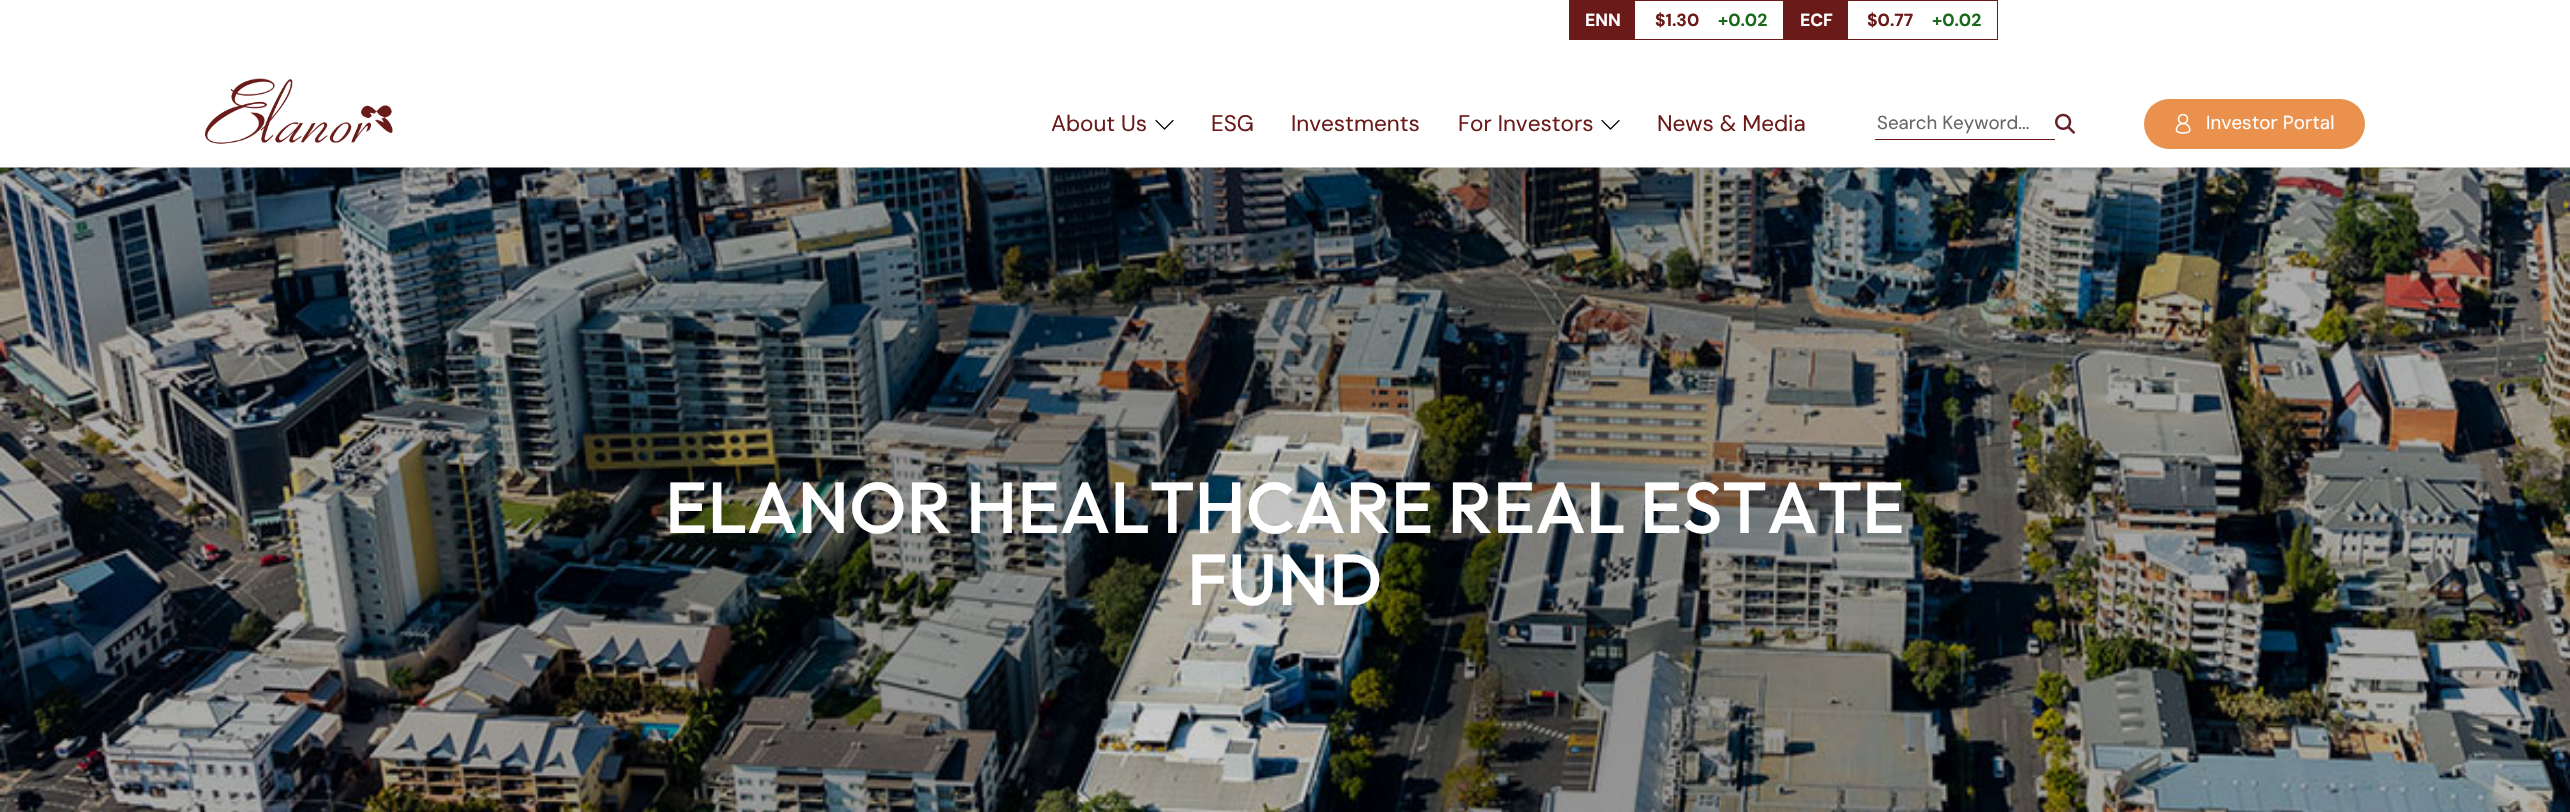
static SkFont makeFont(const char* family, int weight, float size, bool italic = false) {
  SkFontStyle style(weight, SkFontStyle::kNormal_Width,
    italic ? SkFontStyle::kItalic_Slant : SkFontStyle::kUpright_Slant);
  SkFont result(fontMgr->matchFamilyStyle(family, style), size);
  result.setSubpixel(true);
  return result;
}

static void text(SkCanvas* c, const char* s, float x, float y, const SkFont& font, SkColor color) {
  SkPaint ink(SkColor4f::FromColor(color));
  ink.setAntiAlias(true);
  c->drawString(s, x, y, font, ink);
}

static void box(SkCanvas* c, float l, float t, float r, float b, SkColor color) {
  SkPaint ink(SkColor4f::FromColor(color));
  ink.setAntiAlias(true);
  c->drawRect(SkRect::MakeLTRB(l, t, r, b), ink);
}

static void roundBox(SkCanvas* c, float l, float t, float r, float b, float radius, SkColor color) {
  SkPaint ink(SkColor4f::FromColor(color));
  ink.setAntiAlias(true);
  c->drawRoundRect(SkRect::MakeLTRB(l, t, r, b), radius, radius, ink);
}

static void picture(SkCanvas* c, const char* path, float l, float t, float r, float b) {
  auto image = SkImages::DeferredFromEncodedData(SkData::MakeFromFileName(path));
  c->drawImageRect(image, SkRect::MakeLTRB(l, t, r, b), SkSamplingOptions());
}

void draw(SkCanvas* c) {
  SkPaint paint;
  paint.setAntiAlias(true);
  c->clear(0xffffffff);
  paint.setStyle(SkPaint::kStroke_Style);
  paint.setStrokeWidth(1);
  paint.setColor(0xff6a1b19);
  c->drawRect(SkRect::MakeLTRB(1569.5f, 0.5f, 1783.5f, 39.5f), paint);
  box(c, 1570, 1, 1635, 39, 0xff6a1b19);
  SkFont face1 = makeFont("DM Sans", 700, 17.5f);
  text(c, "ENN", 1585, 26, face1, 0xffffffff);
  text(c, "$1.30", 1655, 26, face1, 0xff6a1b19);
  text(c, "+0.02", 1718, 26, face1, 0xff196a1b);
  c->drawRect(SkRect::MakeLTRB(1784.5f, 0.5f, 1997.5f, 39.5f), paint);
  box(c, 1785, 1, 1848, 39, 0xff6a1b19);
  text(c, "ECF", 1800, 26, face1, 0xffffffff);
  text(c, "$0.77", 1867, 26, face1, 0xff6a1b19);
  text(c, "+0.02", 1932, 26, face1, 0xff196a1b);
  picture(c, "img_01.png", 205, 78, 393, 144);
  SkFont face2 = makeFont("DM Sans", 400, 22.5f);
  text(c, "About Us", 1051, 131, face2, 0xff6a1b19);
  paint.setStrokeWidth(1.2f);
  paint.setStrokeCap(SkPaint::kRound_Cap);
  paint.setStrokeJoin(SkPaint::kRound_Join);
  paint.setColor(0xff000000);
  c->drawPath(SkPathBuilder().moveTo(1156, 120.5f).lineTo(1164.5f, 129).lineTo(1173, 120.5f).detach(), paint);
  text(c, "ESG", 1211, 131, face2, 0xff6a1b19);
  text(c, "Investments", 1291, 131, face2, 0xff6a1b19);
  text(c, "For Investors", 1458, 131, face2, 0xff6a1b19);
  c->drawPath(SkPathBuilder().moveTo(1602, 120.5f).lineTo(1610.5f, 129).lineTo(1619, 120.5f).detach(), paint);
  text(c, "News & Media", 1657, 131, face2, 0xff6a1b19);
  box(c, 1875, 139, 2055, 140, 0xff6a1b19);
  SkFont face3 = makeFont("DM Sans", 400, 18.75f);
  text(c, "Search Keyword...", 1877, 129, face3, 0xff666666);
  picture(c, "img_02.png", 2055, 113, 2075, 134);
  roundBox(c, 2144, 99, 2365, 149, 25, 0xffea914e);
  picture(c, "img_03.png", 2175, 114, 2191, 134);
  SkFont face4 = makeFont("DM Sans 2", 400, 18.75f);
  text(c, "Investor Portal", 2206, 129, face4, 0xffffffff);
  picture(c, "img_04.png", 0, 167, 2570, 812);
  SkFont face5 = makeFont("Outfit", 500, 72);
  text(c, "ELANOR HEALTHCARE REAL ESTATE", 665, 533, face5, 0xffffffff);
  text(c, "FUND", 1187, 605, face5, 0xffffffff);
}
